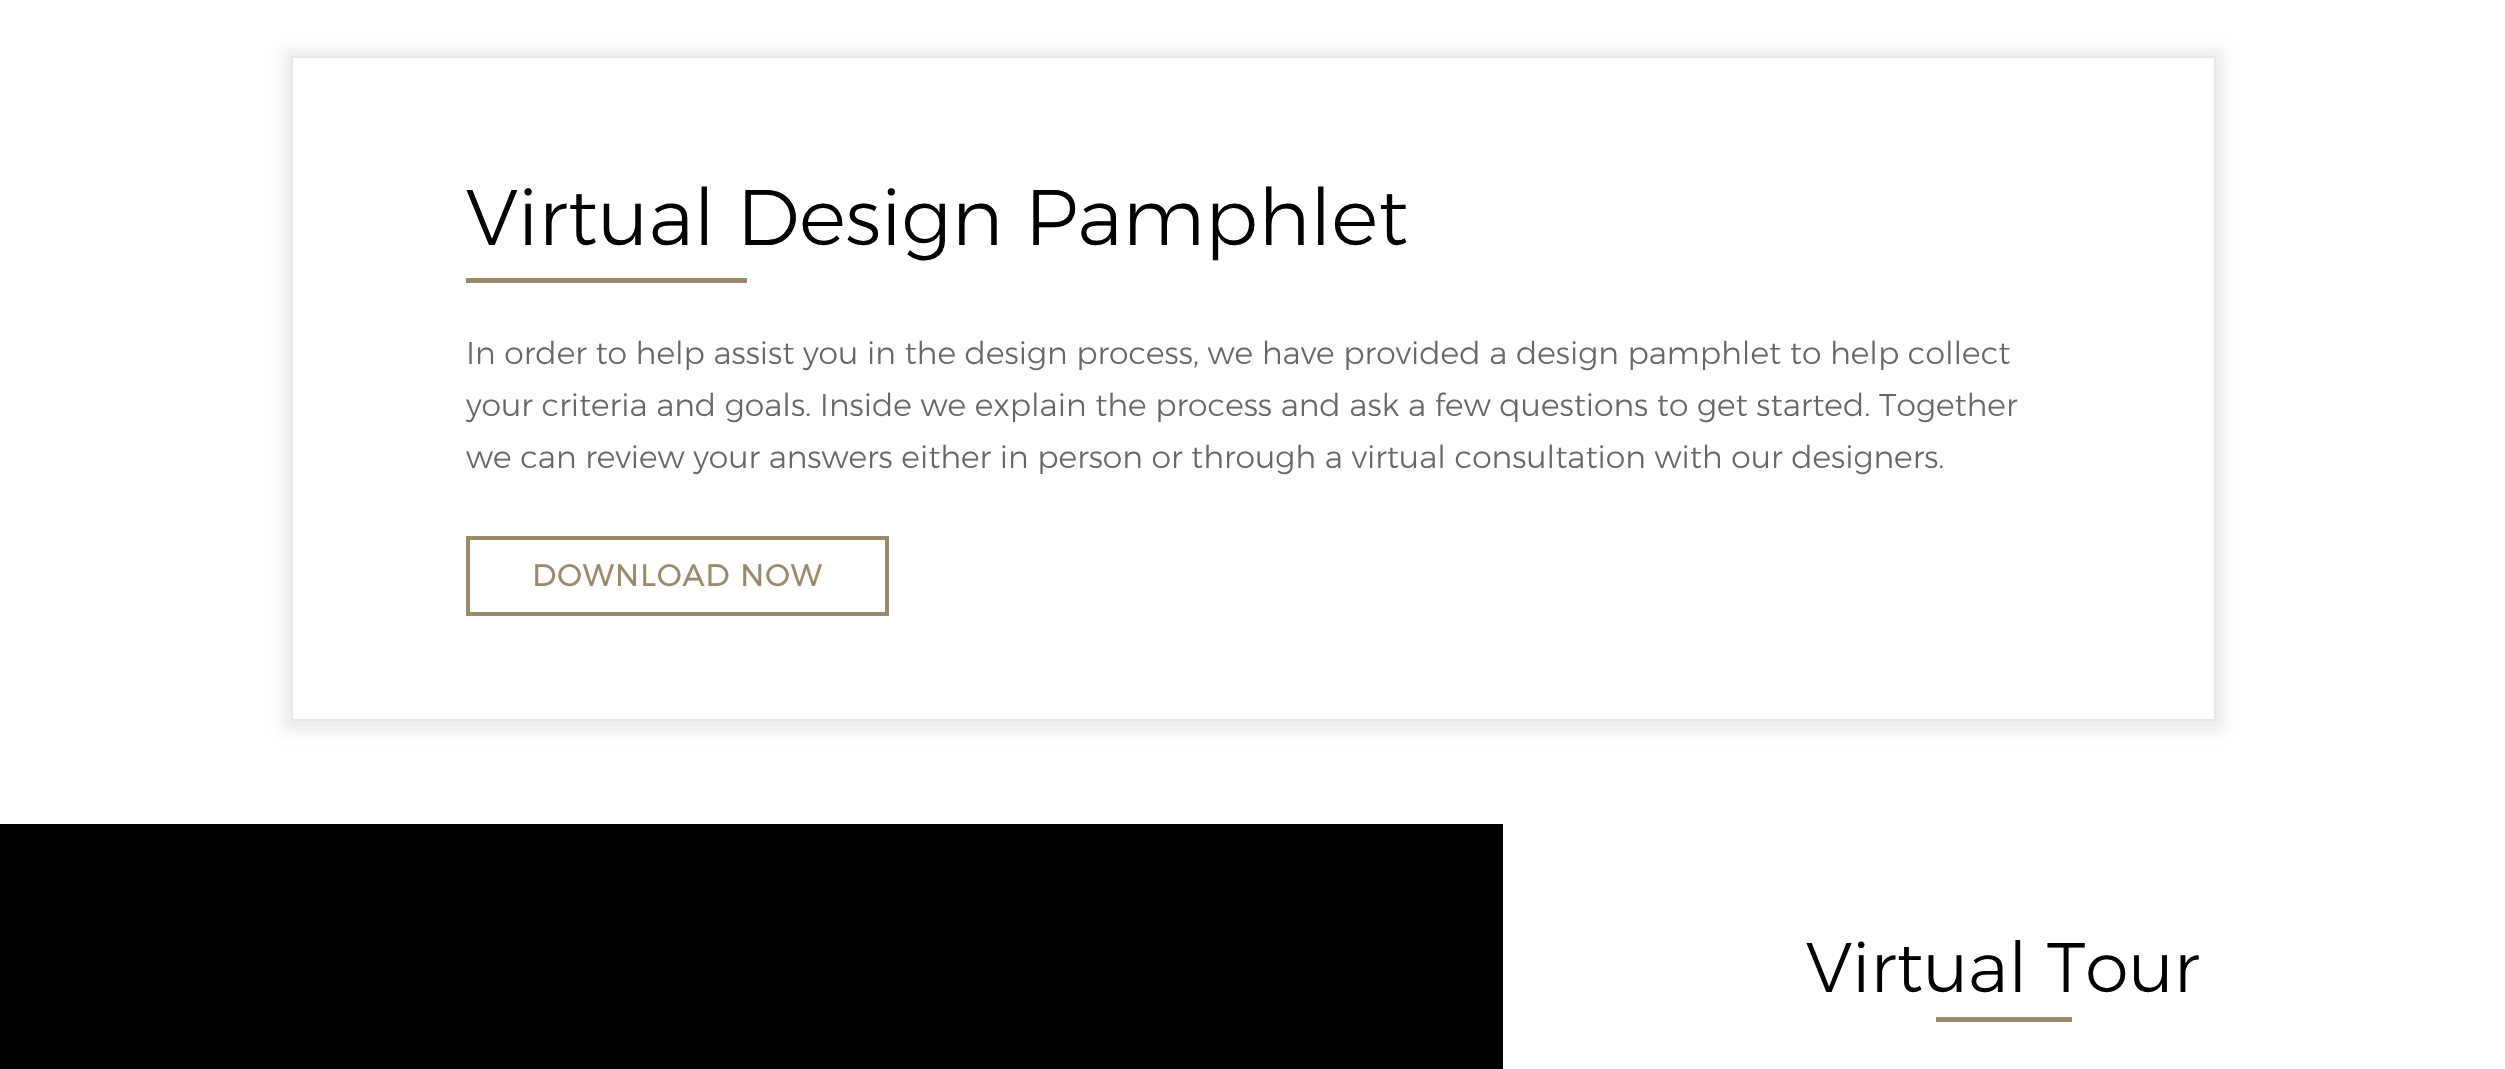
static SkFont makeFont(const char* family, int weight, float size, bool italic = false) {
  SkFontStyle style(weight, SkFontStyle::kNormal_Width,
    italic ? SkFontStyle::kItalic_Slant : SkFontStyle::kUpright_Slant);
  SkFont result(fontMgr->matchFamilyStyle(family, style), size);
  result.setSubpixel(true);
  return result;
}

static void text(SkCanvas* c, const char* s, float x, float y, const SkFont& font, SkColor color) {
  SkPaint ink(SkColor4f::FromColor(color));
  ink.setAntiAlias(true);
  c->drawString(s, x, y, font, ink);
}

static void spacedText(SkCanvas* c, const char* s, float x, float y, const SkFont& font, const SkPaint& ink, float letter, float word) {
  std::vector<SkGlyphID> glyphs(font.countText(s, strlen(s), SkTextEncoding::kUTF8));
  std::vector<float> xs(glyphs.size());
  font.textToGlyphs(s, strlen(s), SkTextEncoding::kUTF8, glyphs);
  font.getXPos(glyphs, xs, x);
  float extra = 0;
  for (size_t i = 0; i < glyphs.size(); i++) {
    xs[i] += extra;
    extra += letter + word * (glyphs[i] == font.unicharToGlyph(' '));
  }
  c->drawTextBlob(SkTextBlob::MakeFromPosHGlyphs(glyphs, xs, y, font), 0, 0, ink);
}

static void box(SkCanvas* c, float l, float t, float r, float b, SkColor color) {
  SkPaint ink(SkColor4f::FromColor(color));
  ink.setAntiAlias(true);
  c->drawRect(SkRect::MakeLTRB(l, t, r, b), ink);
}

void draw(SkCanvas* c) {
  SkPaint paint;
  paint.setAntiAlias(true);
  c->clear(0xffffffff);
  paint.setColor(0x12000000);
  paint.setMaskFilter(SkMaskFilter::MakeBlur(kNormal_SkBlurStyle, 6));
  c->drawRect(SkRect::MakeLTRB(282, 49, 2224, 732), paint);
  paint.setMaskFilter(nullptr);
  paint.setColor(0xffffffff);
  c->drawRect(SkRect::MakeLTRB(292, 57, 2215, 720), paint);
  paint.setStyle(SkPaint::kStroke_Style);
  paint.setStrokeWidth(2);
  paint.setColor(0xffe8e6e6);
  c->drawRect(SkRect::MakeLTRB(292, 57, 2215, 720), paint);
  SkFont face1 = makeFont("Montserrat", 300, 78.75f);
  text(c, "Virtual Design Pamphlet", 466, 245, face1, 0xff000000);
  box(c, 466, 278, 747, 283, 0xff9a896b);
  SkFont face2 = makeFont("Montserrat", 300, 31.5f);
  text(c, "In order to help assist you in the design process, we have provided a design pamphlet to help collect", 466, 364, face2, 0xff666666);
  text(c, "your criteria and goals. Inside we explain the process and ask a few questions to get started. Together", 466, 416, face2, 0xff666666);
  text(c, "we can review your answers either in person or through a virtual consultation with our designers.", 466, 468, face2, 0xff666666);
  paint.setStrokeWidth(4);
  paint.setColor(0xff9a896b);
  c->drawRect(SkRect::MakeLTRB(468, 538, 887, 614), paint);
  SkFont face3 = makeFont("Montserrat", 700, 29.75f);
  paint.setStyle(SkPaint::kFill_Style);
  spacedText(c, "DOWNLOAD NOW", 532, 586, face3, paint, 1.5f, 0);
  box(c, 0, 824, 1503, 1069, 0xff000000);
  SkFont face4 = makeFont("Montserrat", 300, 70);
  text(c, "Virtual Tour", 1806, 992, face4, 0xff000000);
  box(c, 1936, 1017, 2072, 1022, 0xff9a896b);
}
